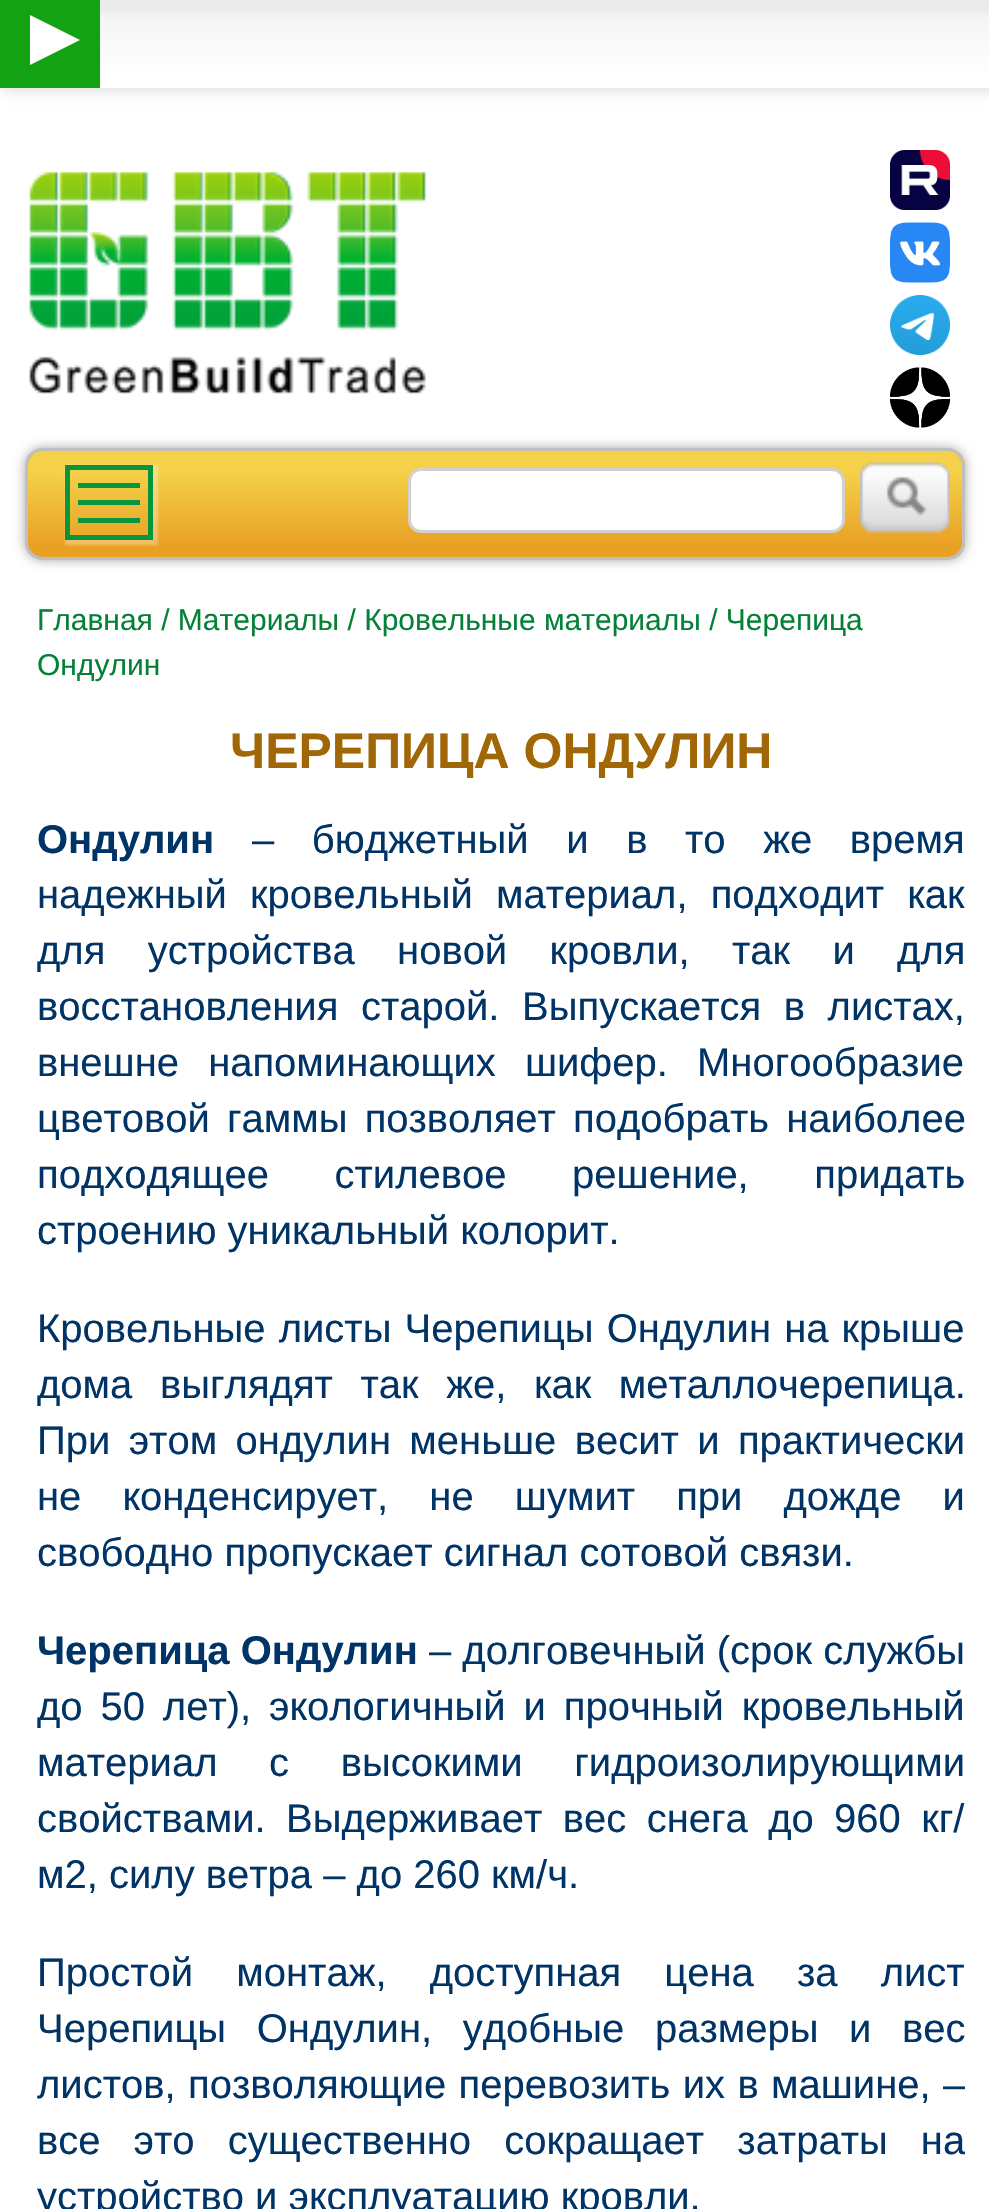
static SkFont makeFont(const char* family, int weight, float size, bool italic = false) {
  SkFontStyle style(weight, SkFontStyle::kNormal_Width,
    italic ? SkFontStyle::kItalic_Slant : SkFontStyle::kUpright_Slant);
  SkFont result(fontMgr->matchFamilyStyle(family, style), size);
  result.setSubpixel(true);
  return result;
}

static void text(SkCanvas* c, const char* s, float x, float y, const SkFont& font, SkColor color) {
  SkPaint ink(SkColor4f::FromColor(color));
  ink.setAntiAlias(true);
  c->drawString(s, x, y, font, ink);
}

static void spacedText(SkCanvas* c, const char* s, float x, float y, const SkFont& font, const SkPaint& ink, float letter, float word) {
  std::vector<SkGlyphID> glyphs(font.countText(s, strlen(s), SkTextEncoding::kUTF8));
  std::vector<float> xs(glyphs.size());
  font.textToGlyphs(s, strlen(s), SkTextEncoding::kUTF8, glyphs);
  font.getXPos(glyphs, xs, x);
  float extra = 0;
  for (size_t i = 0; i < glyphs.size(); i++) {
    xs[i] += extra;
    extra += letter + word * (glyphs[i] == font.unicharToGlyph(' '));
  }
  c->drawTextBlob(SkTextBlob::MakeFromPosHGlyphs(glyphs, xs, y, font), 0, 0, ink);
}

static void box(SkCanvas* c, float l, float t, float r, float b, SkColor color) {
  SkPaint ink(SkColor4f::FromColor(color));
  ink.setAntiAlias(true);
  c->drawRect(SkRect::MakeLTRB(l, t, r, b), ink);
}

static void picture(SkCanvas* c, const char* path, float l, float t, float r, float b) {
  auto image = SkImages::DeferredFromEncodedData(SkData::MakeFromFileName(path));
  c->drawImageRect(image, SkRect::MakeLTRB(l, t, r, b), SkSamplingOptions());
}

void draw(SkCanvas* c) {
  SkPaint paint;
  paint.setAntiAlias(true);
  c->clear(0xffffffff);
  paint.setColor(0xffdcdcdc);
  paint.setMaskFilter(SkMaskFilter::MakeBlur(kNormal_SkBlurStyle, 6));
  c->drawRect(SkRect::MakeLTRB(3, 3, 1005, 90), paint);
  paint.setMaskFilter(nullptr);
  {
    const SkColor colors[] = {0xffffffff, 0xfff5f5f5, 0xffebebeb};
    const float stops[] = {0.13f, 0.79f, 0.9f};
    const SkPoint ends[] = {{0, 88}, {0, 0}};
    paint.setShader(SkGradientShader::MakeLinear(ends, colors, stops, 3, SkTileMode::kClamp));
    paint.setAlpha(255);
  }
  c->drawRect(SkRect::MakeLTRB(100, 0, 989, 88), paint);
  box(c, 0, 0, 100, 88, 0xff13a213);
  paint.setShader(nullptr);
  paint.setColor(0xffffffff);
  c->drawPath(SkPathBuilder().moveTo(30, 65).lineTo(30, 15).lineTo(80, 40).close().detach(), paint);
  picture(c, "img_01.png", 29, 171, 426, 394);
  picture(c, "img_02.png", 890, 150, 950, 210);
  picture(c, "img_03.png", 890, 222, 950, 283);
  picture(c, "img_04.png", 890, 295, 950, 355);
  picture(c, "img_05.png", 890, 367, 950, 428);
  paint.setColor(0xffa7a7a7);
  paint.setMaskFilter(SkMaskFilter::MakeBlur(kNormal_SkBlurStyle, 6));
  c->drawRoundRect(SkRect::MakeLTRB(25, 448, 965, 560), 18, 18, paint);
  paint.setMaskFilter(nullptr);
  c->save();
  c->clipPath(SkPathBuilder().moveTo(43, 448).lineTo(947, 448).cubicTo(957, 448, 965, 456, 965, 466).lineTo(965, 542).cubicTo(965, 552, 957, 560, 947, 560).lineTo(43, 560).cubicTo(33, 560, 25, 552, 25, 542).lineTo(25, 466).cubicTo(25, 456, 33, 448, 43, 448).close().detach(), true);
  {
    const SkColor colors[] = {0xffe9a124, 0xfff5d049};
    const float stops[] = {0.13f, 0.79f};
    const SkPoint ends[] = {{28, 558}, {28, 450}};
    paint.setShader(SkGradientShader::MakeLinear(ends, colors, stops, 2, SkTileMode::kClamp));
    paint.setAlpha(255);
  }
  c->drawRect(SkRect::MakeLTRB(25, 450, 965, 558), paint);
  c->restore();
  paint.setStyle(SkPaint::kStroke_Style);
  paint.setStrokeWidth(3);
  paint.setShader(nullptr);
  paint.setColor(0xffbfbfbf);
  c->drawRoundRect(SkRect::MakeLTRB(26.5f, 449.5f, 963.5f, 558.5f), 16.5f, 16.5f, paint);
  c->save();
  c->clipPath(SkPathBuilder(SkPathFillType::kEvenOdd).moveTo(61, 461).lineTo(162, 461).lineTo(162, 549).lineTo(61, 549).close().moveTo(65, 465).lineTo(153, 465).lineTo(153, 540).lineTo(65, 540).close().detach(), true);
  paint.setStyle(SkPaint::kFill_Style);
  paint.setColor(0x4dffffff);
  paint.setMaskFilter(SkMaskFilter::MakeBlur(kNormal_SkBlurStyle, 1));
  c->drawRect(SkRect::MakeLTRB(65, 465, 158, 545), paint);
  paint.setMaskFilter(nullptr);
  c->restore();
  paint.setStyle(SkPaint::kStroke_Style);
  paint.setStrokeWidth(5);
  paint.setColor(0xff07963e);
  c->drawRect(SkRect::MakeLTRB(67.5f, 467.5f, 150.5f, 537.5f), paint);
  box(c, 78, 483, 140, 488, 0xff07963e);
  box(c, 78, 500, 140, 505, 0xff07963e);
  box(c, 78, 518, 140, 523, 0xff07963e);
  paint.setStyle(SkPaint::kFill_Style);
  paint.setColor(0xffffffff);
  c->drawRoundRect(SkRect::MakeLTRB(409.5f, 469.5f, 843.5f, 531.5f), 11.5f, 11.5f, paint);
  paint.setStyle(SkPaint::kStroke_Style);
  paint.setStrokeWidth(3);
  paint.setColor(0xffd1d1d1);
  c->drawRoundRect(SkRect::MakeLTRB(409.5f, 469.5f, 843.5f, 531.5f), 11.5f, 11.5f, paint);
  picture(c, "img_06.png", 860, 462, 950, 533);
  SkFont face1 = makeFont("Liberation Sans", 400, 30);
  text(c, "Главная / Материалы / Кровельные материалы / Черепица", 37, 630, face1, 0xff048136);
  text(c, "Ондулин", 37, 675, face1, 0xff048136);
  SkFont face2 = makeFont("Liberation Sans", 700, 50);
  text(c, "ЧЕРЕПИЦА ОНДУЛИН", 230, 768, face2, 0xffa16605);
  SkFont face3 = makeFont("Liberation Sans", 700, 40);
  text(c, "Ондулин", 37, 853, face3, 0xff003366);
  SkFont face4 = makeFont("Liberation Sans", 400, 40);
  paint.setStyle(SkPaint::kFill_Style);
  paint.setColor(0xff003366);
  spacedText(c, "– бюджетный и в то же время", 252, 853, face4, paint, 0, 26.5f);
  spacedText(c, "надежный кровельный материал, подходит как", 37, 908, face4, paint, 0, 12);
  spacedText(c, "для устройства новой кровли, так и для", 37, 964, face4, paint, 0, 31.25f);
  spacedText(c, "восстановления старой. Выпускается в листах,", 37, 1020, face4, paint, 0, 11.5f);
  spacedText(c, "внешне напоминающих шифер. Многообразие", 37, 1076, face4, paint, 0, 18);
  spacedText(c, "цветовой гаммы позволяет подобрать наиболее", 37, 1132, face4, paint, 0, 6);
  spacedText(c, "подходящее стилевое решение, придать", 37, 1188, face4, paint, 0, 54.5f);
  text(c, "строению уникальный колорит.", 37, 1244, face4, 0xff003366);
  spacedText(c, "Кровельные листы Черепицы Ондулин на крыше", 37, 1342, face4, paint, 0, 2);
  spacedText(c, "дома выглядят так же, как металлочерепица.", 37, 1398, face4, paint, 0, 16.5f);
  spacedText(c, "При этом ондулин меньше весит и практически", 37, 1454, face4, paint, 0, 7.25f);
  spacedText(c, "не конденсирует, не шумит при дожде и", 37, 1510, face4, paint, 0, 30);
  text(c, "свободно пропускает сигнал сотовой связи.", 37, 1566, face4, 0xff003366);
  text(c, "Черепица Ондулин", 37, 1664, face3, 0xff003366);
  text(c, "– долговечный (срок службы", 429, 1664, face4, 0xff003366);
  spacedText(c, "до 50 лет), экологичный и прочный кровельный", 37, 1720, face4, paint, 0, 6.75f);
  spacedText(c, "материал с высокими гидроизолирующими", 37, 1776, face4, paint, 0, 40.5f);
  spacedText(c, "свойствами. Выдерживает вес снега до 960 кг/", 37, 1832, face4, paint, 0, 9.25f);
  text(c, "м2, силу ветра – до 260 км/ч.", 37, 1888, face4, 0xff003366);
  spacedText(c, "Простой монтаж, доступная цена за лист", 37, 1986, face4, paint, 0, 32);
  spacedText(c, "Черепицы Ондулин, удобные размеры и вес", 37, 2042, face4, paint, 0, 19.5f);
  c->save();
  c->clipRect(SkRect::MakeLTRB(25, 598, 965, 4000));
  spacedText(c, "листов, позволяющие перевозить их в машине, –", 37, 2098, face4, paint, 0, 1.25f);
  spacedText(c, "все это существенно сокращает затраты на", 37, 2154, face4, paint, 0, 22);
  c->restore();
  text(c, "устройство и эксплуатацию кровли.", 37, 2210, face4, 0xff003366);
}
